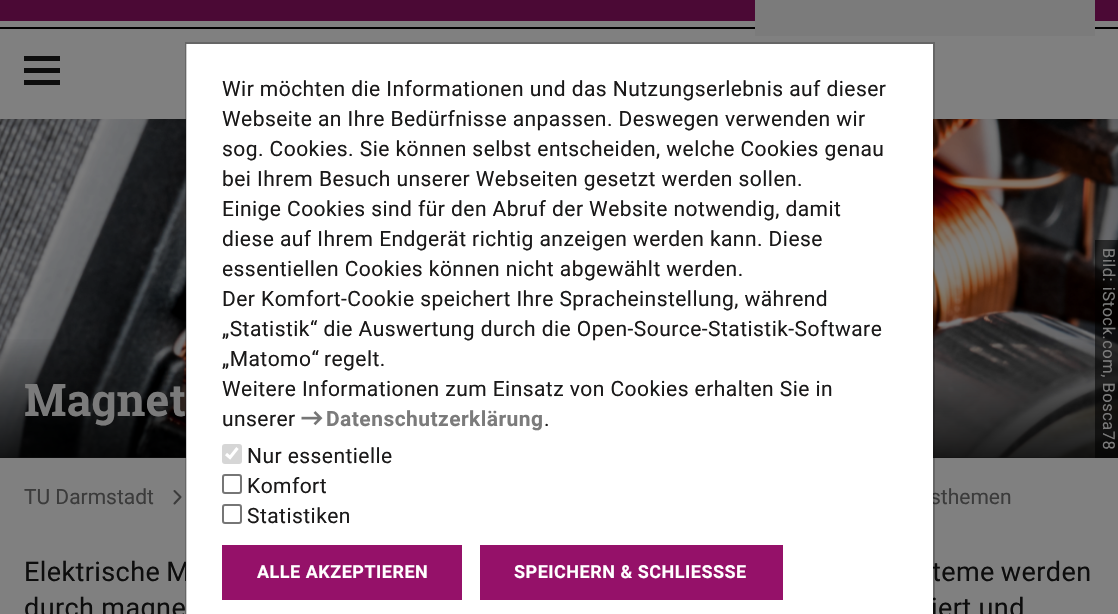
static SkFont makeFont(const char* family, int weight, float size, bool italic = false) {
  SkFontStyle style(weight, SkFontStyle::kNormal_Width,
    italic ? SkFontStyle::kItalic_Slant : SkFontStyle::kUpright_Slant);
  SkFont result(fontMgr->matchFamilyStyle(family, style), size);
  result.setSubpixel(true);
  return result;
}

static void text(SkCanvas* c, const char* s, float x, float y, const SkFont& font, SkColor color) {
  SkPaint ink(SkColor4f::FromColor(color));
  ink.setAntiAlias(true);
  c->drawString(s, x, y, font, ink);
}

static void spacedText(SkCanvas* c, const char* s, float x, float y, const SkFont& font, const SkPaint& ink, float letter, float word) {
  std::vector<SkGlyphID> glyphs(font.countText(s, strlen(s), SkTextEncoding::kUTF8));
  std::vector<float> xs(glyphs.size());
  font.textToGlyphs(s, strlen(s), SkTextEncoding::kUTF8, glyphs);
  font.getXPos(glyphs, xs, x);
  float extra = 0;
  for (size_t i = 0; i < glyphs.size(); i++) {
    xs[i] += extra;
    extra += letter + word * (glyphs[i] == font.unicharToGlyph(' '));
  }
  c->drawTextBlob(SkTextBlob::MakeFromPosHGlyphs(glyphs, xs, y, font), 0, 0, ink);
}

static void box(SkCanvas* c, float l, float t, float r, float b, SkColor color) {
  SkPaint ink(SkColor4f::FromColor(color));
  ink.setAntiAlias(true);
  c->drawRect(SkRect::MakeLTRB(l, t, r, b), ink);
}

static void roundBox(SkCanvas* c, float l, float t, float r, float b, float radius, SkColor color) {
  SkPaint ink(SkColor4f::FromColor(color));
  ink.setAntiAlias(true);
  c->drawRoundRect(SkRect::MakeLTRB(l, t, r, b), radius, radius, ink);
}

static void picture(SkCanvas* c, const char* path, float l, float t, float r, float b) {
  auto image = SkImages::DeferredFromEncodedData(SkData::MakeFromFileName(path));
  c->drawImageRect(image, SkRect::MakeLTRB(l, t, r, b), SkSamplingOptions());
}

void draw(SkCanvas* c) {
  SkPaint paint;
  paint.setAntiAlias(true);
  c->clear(0xff808080);
  box(c, 0, 457, 1118, 458, 0xff535353);
  picture(c, "img_02.png", 0, 119, 1118, 458);
  {
    const SkColor colors[] = {0xcc000000, 0x00000000};
    const float stops[] = {0, 0.25f};
    const SkPoint ends[] = {{560, 458}, {560, -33}};
    paint.setShader(SkGradientShader::MakeLinear(ends, colors, stops, 2, SkTileMode::kClamp));
    paint.setAlpha(255);
  }
  c->drawRect(SkRect::MakeLTRB(0, 339, 1118, 458), paint);
  SkFont face1 = makeFont("Roboto", 400, 21);
  text(c, "sthemen", 930, 504, face1, 0xff3b3b3b);
  SkFont face2 = makeFont("Roboto", 400, 27);
  paint.setShader(nullptr);
  paint.setColor(0xff0d0d0d);
  spacedText(c, "Elektrische M", 24, 581, face2, paint, 0.4f, -1);
  spacedText(c, "teme werden", 932, 581, face2, paint, 0.4f, -1);
  spacedText(c, "iert und", 931, 617, face2, paint, 0.4f, 0);
  box(c, 186, 44, 933, 614, 0xffffffff);
  SkFont face3 = makeFont("Roboto Slab", 700, 45);
  text(c, "Magnet", 24, 416, face3, 0xff7b7b7b);
  paint.setStyle(SkPaint::kStroke_Style);
  paint.setStrokeWidth(2);
  paint.setColor(0x33000000);
  c->drawRect(SkRect::MakeLTRB(186, 43, 934, 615), paint);
  paint.setStyle(SkPaint::kFill_Style);
  paint.setColor(0xff1a1919);
  spacedText(c, "Wir möchten die Informationen und das Nutzungserlebnis auf dieser", 222, 96, face1, paint, 0.45f, 0);
  spacedText(c, "Webseite an Ihre Bedürfnisse anpassen. Deswegen verwenden wir", 222, 126, face1, paint, 0.45f, 0);
  spacedText(c, "sog. Cookies. Sie können selbst entscheiden, welche Cookies genau", 222, 156, face1, paint, 0.45f, 0);
  spacedText(c, "bei Ihrem Besuch unserer Webseiten gesetzt werden sollen.", 222, 186, face1, paint, 0.45f, 0);
  spacedText(c, "Einige Cookies sind für den Abruf der Website notwendig, damit", 222, 216, face1, paint, 0.45f, 0);
  spacedText(c, "diese auf Ihrem Endgerät richtig anzeigen werden kann. Diese", 222, 246, face1, paint, 0.45f, 0);
  spacedText(c, "essentiellen Cookies können nicht abgewählt werden.", 222, 276, face1, paint, 0.45f, 0);
  spacedText(c, "Der Komfort-Cookie speichert Ihre Spracheinstellung, während", 222, 306, face1, paint, 0.45f, 0);
  spacedText(c, "„Statistik“ die Auswertung durch die Open-Source-Statistik-Software", 222, 336, face1, paint, 0.45f, 0);
  spacedText(c, "„Matomo“ regelt.", 222, 366, face1, paint, 0.45f, -1);
  spacedText(c, "Weitere Informationen zum Einsatz von Cookies erhalten Sie in", 222, 396, face1, paint, 0.45f, 0);
  spacedText(c, "unserer", 222, 426, face1, paint, 0.45f, 0);
  picture(c, "img_01.png", 301, 411, 323, 426);
  SkFont face4 = makeFont("Roboto", 700, 21);
  paint.setColor(0xff7b7b7b);
  spacedText(c, "Datenschutzerklärung", 326, 426, face4, paint, 0.45f, 0);
  paint.setColor(0xff1a1919);
  spacedText(c, ".", 544, 426, face1, paint, 0.45f, 0);
  roundBox(c, 222, 444, 242, 464, 3, 0xffd6d6d6);
  paint.setStyle(SkPaint::kStroke_Style);
  paint.setStrokeWidth(3.1f);
  paint.setColor(0xffffffff);
  c->drawPath(SkPathBuilder().moveTo(226, 454).lineTo(230, 457.5f).lineTo(237.5f, 448).detach(), paint);
  paint.setStyle(SkPaint::kFill_Style);
  paint.setColor(0xff1a1919);
  spacedText(c, "Nur essentielle", 247, 463, face1, paint, 0.45f, 0);
  paint.setStyle(SkPaint::kStroke_Style);
  paint.setStrokeWidth(2);
  paint.setColor(0xff767676);
  c->drawRoundRect(SkRect::MakeLTRB(223, 475, 241, 493), 2, 2, paint);
  paint.setStyle(SkPaint::kFill_Style);
  paint.setColor(0xff1a1919);
  spacedText(c, "Komfort", 247, 493, face1, paint, 0.45f, 0);
  paint.setStyle(SkPaint::kStroke_Style);
  paint.setColor(0xff767676);
  c->drawRoundRect(SkRect::MakeLTRB(223, 505, 241, 523), 2, 2, paint);
  paint.setStyle(SkPaint::kFill_Style);
  paint.setColor(0xff1a1919);
  spacedText(c, "Statistiken", 247, 523, face1, paint, 0.45f, 0);
  box(c, 222, 545, 462, 600, 0xff951169);
  SkFont face5 = makeFont("Roboto", 700, 18);
  paint.setColor(0xffffffff);
  spacedText(c, "ALLE AKZEPTIEREN", 257, 578, face5, paint, 0.5f, 0);
  box(c, 480, 545, 783, 600, 0xff951169);
  spacedText(c, "SPEICHERN & SCHLIESSSE", 514, 578, face5, paint, 0.5f, 0);
  box(c, 0, 0, 1118, 21, 0xff4b0935);
  box(c, 0, 27, 1118, 29, 0xff000000);
  box(c, 755, 0, 1095, 36, 0xff7b7b7b);
  box(c, 24, 68, 60, 73, 0xff0d0d0d);
  box(c, 24, 56, 60, 61, 0xff0d0d0d);
  box(c, 24, 80, 60, 85, 0xff0d0d0d);
  box(c, 1095, 240, 1118, 458, 0x99000000);
  SkFont face6 = makeFont("Roboto", 400, 16.5f);
  paint.setColor(0xff7b7b7b);
  c->save();
  c->rotate(90, 1103, 248);
  spacedText(c, "Bild: iStock.com, Bosca78", 1103, 248, face6, paint, 0.5f, 0);
  c->restore();
  text(c, "TU Darmstadt", 24, 504, face1, 0xff3b3b3b);
  paint.setStyle(SkPaint::kStroke_Style);
  paint.setStrokeWidth(2.1f);
  paint.setStrokeCap(SkPaint::kRound_Cap);
  paint.setStrokeJoin(SkPaint::kRound_Join);
  paint.setColor(0xff3b3b3b);
  c->drawPath(SkPathBuilder().moveTo(174.5f, 503.5f).lineTo(180.5f, 497).lineTo(174.5f, 491).detach(), paint);
  paint.setStyle(SkPaint::kFill_Style);
  paint.setColor(0xff0d0d0d);
  spacedText(c, "durch magne", 24, 617, face2, paint, 0.4f, 0);
}
